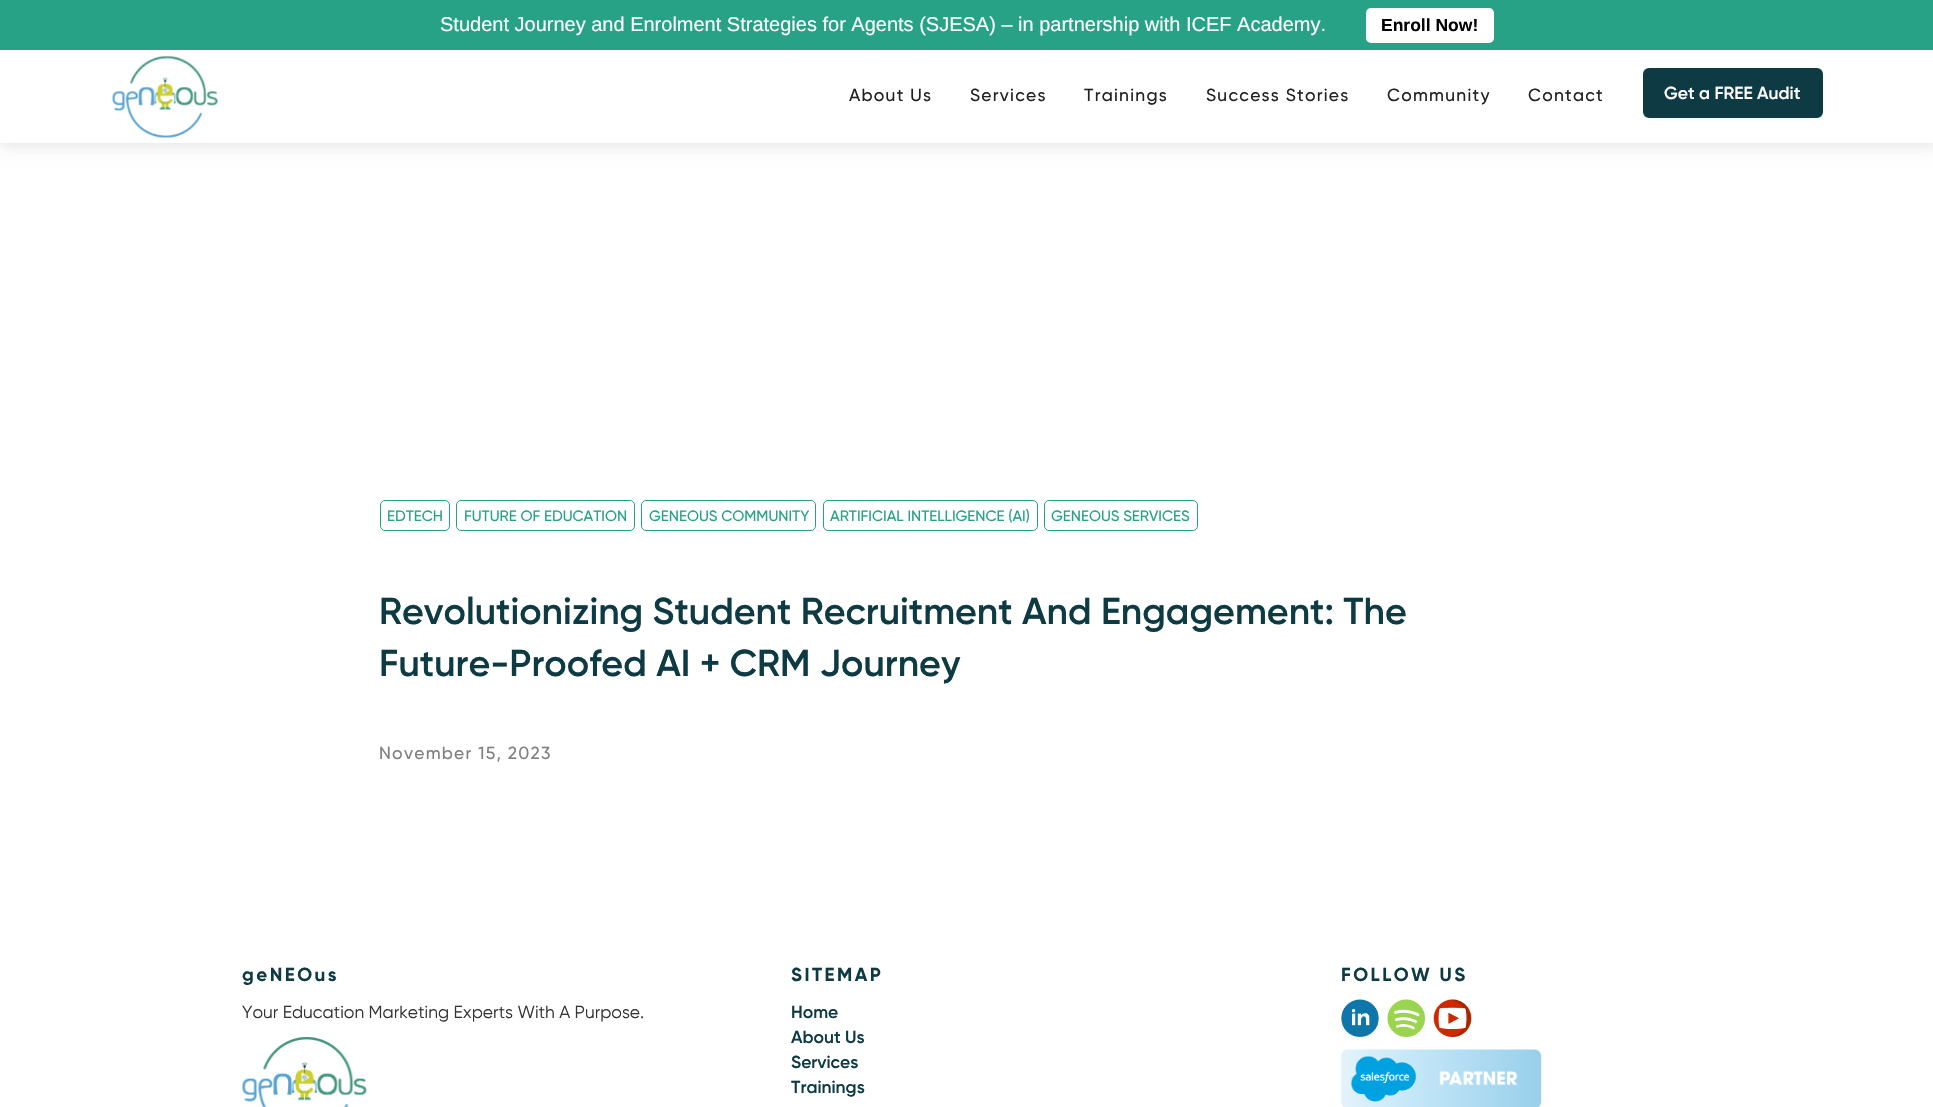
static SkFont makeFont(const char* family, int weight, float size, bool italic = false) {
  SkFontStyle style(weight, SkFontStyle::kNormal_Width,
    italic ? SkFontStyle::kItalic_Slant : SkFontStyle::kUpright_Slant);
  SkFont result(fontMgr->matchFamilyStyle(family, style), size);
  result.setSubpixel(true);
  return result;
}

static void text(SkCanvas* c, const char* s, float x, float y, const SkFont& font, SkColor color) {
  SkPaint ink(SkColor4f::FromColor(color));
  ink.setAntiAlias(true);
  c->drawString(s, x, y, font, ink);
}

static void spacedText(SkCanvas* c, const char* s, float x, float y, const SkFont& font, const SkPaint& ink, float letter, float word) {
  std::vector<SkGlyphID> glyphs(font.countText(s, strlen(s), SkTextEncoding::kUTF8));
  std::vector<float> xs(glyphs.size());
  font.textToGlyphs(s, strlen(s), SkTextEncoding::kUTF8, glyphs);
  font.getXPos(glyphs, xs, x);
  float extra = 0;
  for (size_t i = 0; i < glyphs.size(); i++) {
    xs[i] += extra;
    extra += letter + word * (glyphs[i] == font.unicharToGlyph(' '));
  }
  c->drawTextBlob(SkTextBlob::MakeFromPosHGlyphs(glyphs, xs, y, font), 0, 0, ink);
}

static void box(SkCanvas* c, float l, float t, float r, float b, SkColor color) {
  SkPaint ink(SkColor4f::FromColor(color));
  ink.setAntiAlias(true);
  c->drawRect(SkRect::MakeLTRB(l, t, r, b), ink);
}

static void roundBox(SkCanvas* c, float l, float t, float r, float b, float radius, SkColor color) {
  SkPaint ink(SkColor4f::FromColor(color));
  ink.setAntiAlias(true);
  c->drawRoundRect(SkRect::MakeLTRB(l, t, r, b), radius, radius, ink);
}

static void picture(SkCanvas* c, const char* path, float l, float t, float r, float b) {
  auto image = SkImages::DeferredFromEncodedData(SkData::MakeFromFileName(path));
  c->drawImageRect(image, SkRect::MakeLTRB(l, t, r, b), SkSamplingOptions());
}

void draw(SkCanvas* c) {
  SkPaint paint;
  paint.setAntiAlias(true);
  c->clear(0xffffffff);
  paint.setColor(0x1a000000);
  paint.setMaskFilter(SkMaskFilter::MakeBlur(kNormal_SkBlurStyle, 7.5f));
  c->drawRect(SkRect::MakeLTRB(-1, -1, 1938, 146), paint);
  paint.setMaskFilter(nullptr);
  box(c, 0, 50, 1933, 143, 0xffffffff);
  box(c, 0, 0, 1933, 50, 0xff27a286);
  SkFont face1 = makeFont("Liberation Sans", 400, 20);
  text(c, "Student Journey and Enrolment Strategies for Agents (SJESA) – in partnership with ICEF Academy.", 440, 31, face1, 0xffffffff);
  roundBox(c, 1366, 8, 1494, 43, 5, 0xffffffff);
  SkFont face2 = makeFont("Liberation Sans", 700, 17.5f);
  text(c, "Enroll Now!", 1381, 31, face2, 0xff000000);
  picture(c, "img_01.png", 112, 55, 218, 138);
  SkFont face3 = makeFont("Gilroy", 500, 17.5f);
  paint.setColor(0xff222222);
  spacedText(c, "About Us", 849, 101, face3, paint, 1.25f, 0);
  spacedText(c, "Services", 970, 101, face3, paint, 1.25f, 0);
  spacedText(c, "Trainings", 1084, 101, face3, paint, 1.25f, 0);
  spacedText(c, "Success Stories", 1206, 101, face3, paint, 1.25f, 0);
  spacedText(c, "Community", 1387, 101, face3, paint, 1.25f, 0);
  spacedText(c, "Contact", 1528, 101, face3, paint, 1.25f, 0);
  paint.setColor(0xff0e3b43);
  c->drawRoundRect(SkRect::MakeLTRB(1644.5f, 69.5f, 1821.5f, 116.5f), 4.5f, 4.5f, paint);
  paint.setStyle(SkPaint::kStroke_Style);
  paint.setStrokeWidth(3);
  c->drawRoundRect(SkRect::MakeLTRB(1644.5f, 69.5f, 1821.5f, 116.5f), 4.5f, 4.5f, paint);
  SkFont face4 = makeFont("Gilroy", 600, 17.5f);
  text(c, "Get a FREE Audit", 1664, 99, face4, 0xffffffff);
  paint.setStrokeWidth(1);
  paint.setColor(0xff27a286);
  c->drawRoundRect(SkRect::MakeLTRB(380.5f, 500.5f, 449.5f, 530.5f), 4.5f, 4.5f, paint);
  SkFont face5 = makeFont("Gilroy", 500, 15);
  text(c, "EDTECH", 387, 521, face5, 0xff27a286);
  c->drawRoundRect(SkRect::MakeLTRB(456.5f, 500.5f, 634.5f, 530.5f), 4.5f, 4.5f, paint);
  text(c, "FUTURE OF EDUCATION", 464, 521, face5, 0xff27a286);
  c->drawRoundRect(SkRect::MakeLTRB(641.5f, 500.5f, 815.5f, 530.5f), 4.5f, 4.5f, paint);
  text(c, "GENEOUS COMMUNITY", 649, 521, face5, 0xff27a286);
  c->drawRoundRect(SkRect::MakeLTRB(823.5f, 500.5f, 1037.5f, 530.5f), 4.5f, 4.5f, paint);
  text(c, "ARTIFICIAL INTELLIGENCE (AI)", 830, 521, face5, 0xff27a286);
  c->drawRoundRect(SkRect::MakeLTRB(1044.5f, 500.5f, 1197.5f, 530.5f), 4.5f, 4.5f, paint);
  text(c, "GENEOUS SERVICES", 1051, 521, face5, 0xff27a286);
  SkFont face6 = makeFont("Gilroy", 600, 37.5f);
  text(c, "Revolutionizing Student Recruitment And Engagement: The", 379, 624, face6, 0xff0e3b43);
  text(c, "Future-Proofed AI + CRM Journey", 379, 676, face6, 0xff0e3b43);
  paint.setStyle(SkPaint::kFill_Style);
  paint.setColor(0xff808080);
  spacedText(c, "November 15, 2023", 379, 759, face3, paint, 1.25f, 0);
  SkFont face7 = makeFont("Gilroy", 700, 18.75f);
  paint.setColor(0xff0e3b43);
  spacedText(c, "geNEOus", 242, 981, face7, paint, 2.5f, 0);
  SkFont face8 = makeFont("Gilroy", 400, 17.5f);
  text(c, "Your Education Marketing Experts With A Purpose.", 242, 1018, face8, 0xff333333);
  picture(c, "img_02.png", 242, 1037, 367, 1107);
  spacedText(c, "SITEMAP", 791, 981, face7, paint, 2.5f, 0);
  text(c, "Home", 791, 1018, face4, 0xff0e3b43);
  text(c, "About Us", 791, 1043, face4, 0xff0e3b43);
  text(c, "Services", 791, 1068, face4, 0xff0e3b43);
  text(c, "Trainings", 791, 1093, face4, 0xff0e3b43);
  spacedText(c, "FOLLOW US", 1341, 981, face7, paint, 2.5f, 0);
  picture(c, "img_03.png", 1341, 999, 1379, 1037);
  picture(c, "img_04.png", 1387, 999, 1425, 1037);
  picture(c, "img_05.png", 1433, 999, 1472, 1037);
  picture(c, "img_06.png", 1341, 1049, 1542, 1107);
}
